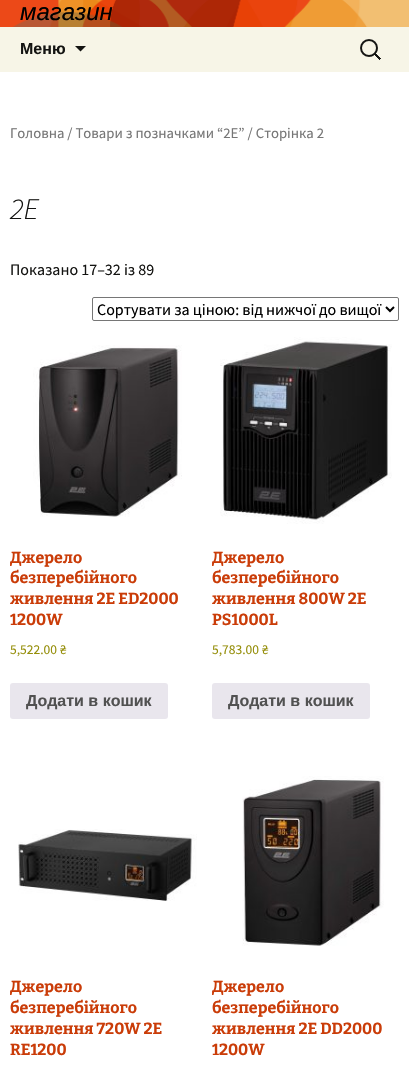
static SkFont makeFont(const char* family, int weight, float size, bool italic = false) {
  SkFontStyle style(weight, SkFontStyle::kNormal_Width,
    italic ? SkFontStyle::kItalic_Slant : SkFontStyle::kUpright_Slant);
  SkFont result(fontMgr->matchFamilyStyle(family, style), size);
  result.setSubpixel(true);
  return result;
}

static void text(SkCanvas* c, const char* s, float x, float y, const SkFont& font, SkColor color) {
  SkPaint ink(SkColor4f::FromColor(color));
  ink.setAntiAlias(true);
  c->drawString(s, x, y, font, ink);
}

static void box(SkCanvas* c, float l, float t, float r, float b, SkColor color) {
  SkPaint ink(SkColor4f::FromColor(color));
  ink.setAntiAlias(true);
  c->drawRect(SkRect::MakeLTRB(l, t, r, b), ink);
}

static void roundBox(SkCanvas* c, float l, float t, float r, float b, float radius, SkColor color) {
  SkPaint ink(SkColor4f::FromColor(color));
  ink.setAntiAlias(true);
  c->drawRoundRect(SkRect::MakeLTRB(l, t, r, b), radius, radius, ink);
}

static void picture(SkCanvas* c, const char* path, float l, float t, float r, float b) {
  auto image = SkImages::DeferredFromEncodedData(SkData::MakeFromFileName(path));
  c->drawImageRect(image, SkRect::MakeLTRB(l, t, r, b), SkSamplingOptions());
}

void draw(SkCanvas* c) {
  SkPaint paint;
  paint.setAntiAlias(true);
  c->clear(0xffffffff);
  picture(c, "img_01.png", 0, 0, 409, 27);
  SkFont face1 = makeFont("Liberation Sans", 400, 24, true);
  text(c, "магазин", 20, 20, face1, 0xff000000);
  box(c, 0, 27, 409, 72, 0xfff7f5e7);
  SkFont face2 = makeFont("Liberation Sans", 700, 16);
  text(c, "Меню", 20, 54, face2, 0xff141412);
  paint.setColor(0xff141412);
  c->drawPath(SkPathBuilder().moveTo(75, 46).lineTo(80.5f, 51.5f).lineTo(86, 46).close().detach(), paint);
  picture(c, "img_02.png", 360, 39, 381, 60);
  SkFont face3 = makeFont("Source Sans Pro", 400, 14.75f);
  text(c, "Головна / Товари з позначками “2E” / Сторінка 2", 10, 138, face3, 0xff767676);
  SkFont face4 = makeFont("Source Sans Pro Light", 300, 30, true);
  text(c, "2E", 10, 219, face4, 0xff141412);
  SkFont face5 = makeFont("Source Sans Pro", 400, 16);
  text(c, "Показано 17–32 із 89", 10, 275, face5, 0xff141412);
  paint.setStyle(SkPaint::kStroke_Style);
  paint.setStrokeWidth(1);
  paint.setColor(0xff767676);
  c->drawRoundRect(SkRect::MakeLTRB(92.5f, 297.5f, 398.5f, 320.5f), 1.5f, 1.5f, paint);
  paint.setStrokeWidth(2);
  paint.setColor(0xff000000);
  c->drawPath(SkPathBuilder().moveTo(386, 307).lineTo(390, 311).lineTo(394, 307).detach(), paint);
  text(c, "Сортувати за ціною: від нижчої до вищої", 97, 315, face5, 0xff000000);
  picture(c, "img_03.png", 33, 345, 182, 517);
  SkFont face6 = makeFont("Bitter", 700, 16);
  text(c, "Джерело", 10, 563, face6, 0xffca3c08);
  text(c, "безперебійного", 10, 583, face6, 0xffca3c08);
  text(c, "живлення 2E ED2000", 10, 604, face6, 0xffca3c08);
  text(c, "1200W", 10, 625, face6, 0xffca3c08);
  SkFont face7 = makeFont("Source Sans Pro", 400, 13.5f);
  text(c, "5,522.00 ₴", 10, 654, face7, 0xff958e09);
  roundBox(c, 10, 683, 168, 719, 3, 0xffe9e6ed);
  text(c, "Додати в кошик", 26, 706, face2, 0xff515151);
  picture(c, "img_04.png", 220, 337, 392, 524);
  text(c, "Джерело", 212, 563, face6, 0xffca3c08);
  text(c, "безперебійного", 212, 583, face6, 0xffca3c08);
  text(c, "живлення 800W 2E", 212, 604, face6, 0xffca3c08);
  text(c, "PS1000L", 212, 625, face6, 0xffca3c08);
  text(c, "5,783.00 ₴", 212, 654, face7, 0xff958e09);
  roundBox(c, 212, 683, 370, 719, 3, 0xffe9e6ed);
  text(c, "Додати в кошик", 228, 706, face2, 0xff515151);
  picture(c, "img_05.png", 18, 829, 197, 901);
  text(c, "Джерело", 10, 992, face6, 0xffca3c08);
  text(c, "безперебійного", 10, 1013, face6, 0xffca3c08);
  text(c, "живлення 720W 2E", 10, 1034, face6, 0xffca3c08);
  text(c, "RE1200", 10, 1055, face6, 0xffca3c08);
  picture(c, "img_06.png", 242, 776, 384, 946);
  text(c, "Джерело", 212, 992, face6, 0xffca3c08);
  text(c, "безперебійного", 212, 1013, face6, 0xffca3c08);
  text(c, "живлення 2E DD2000", 212, 1034, face6, 0xffca3c08);
  text(c, "1200W", 212, 1055, face6, 0xffca3c08);
}
